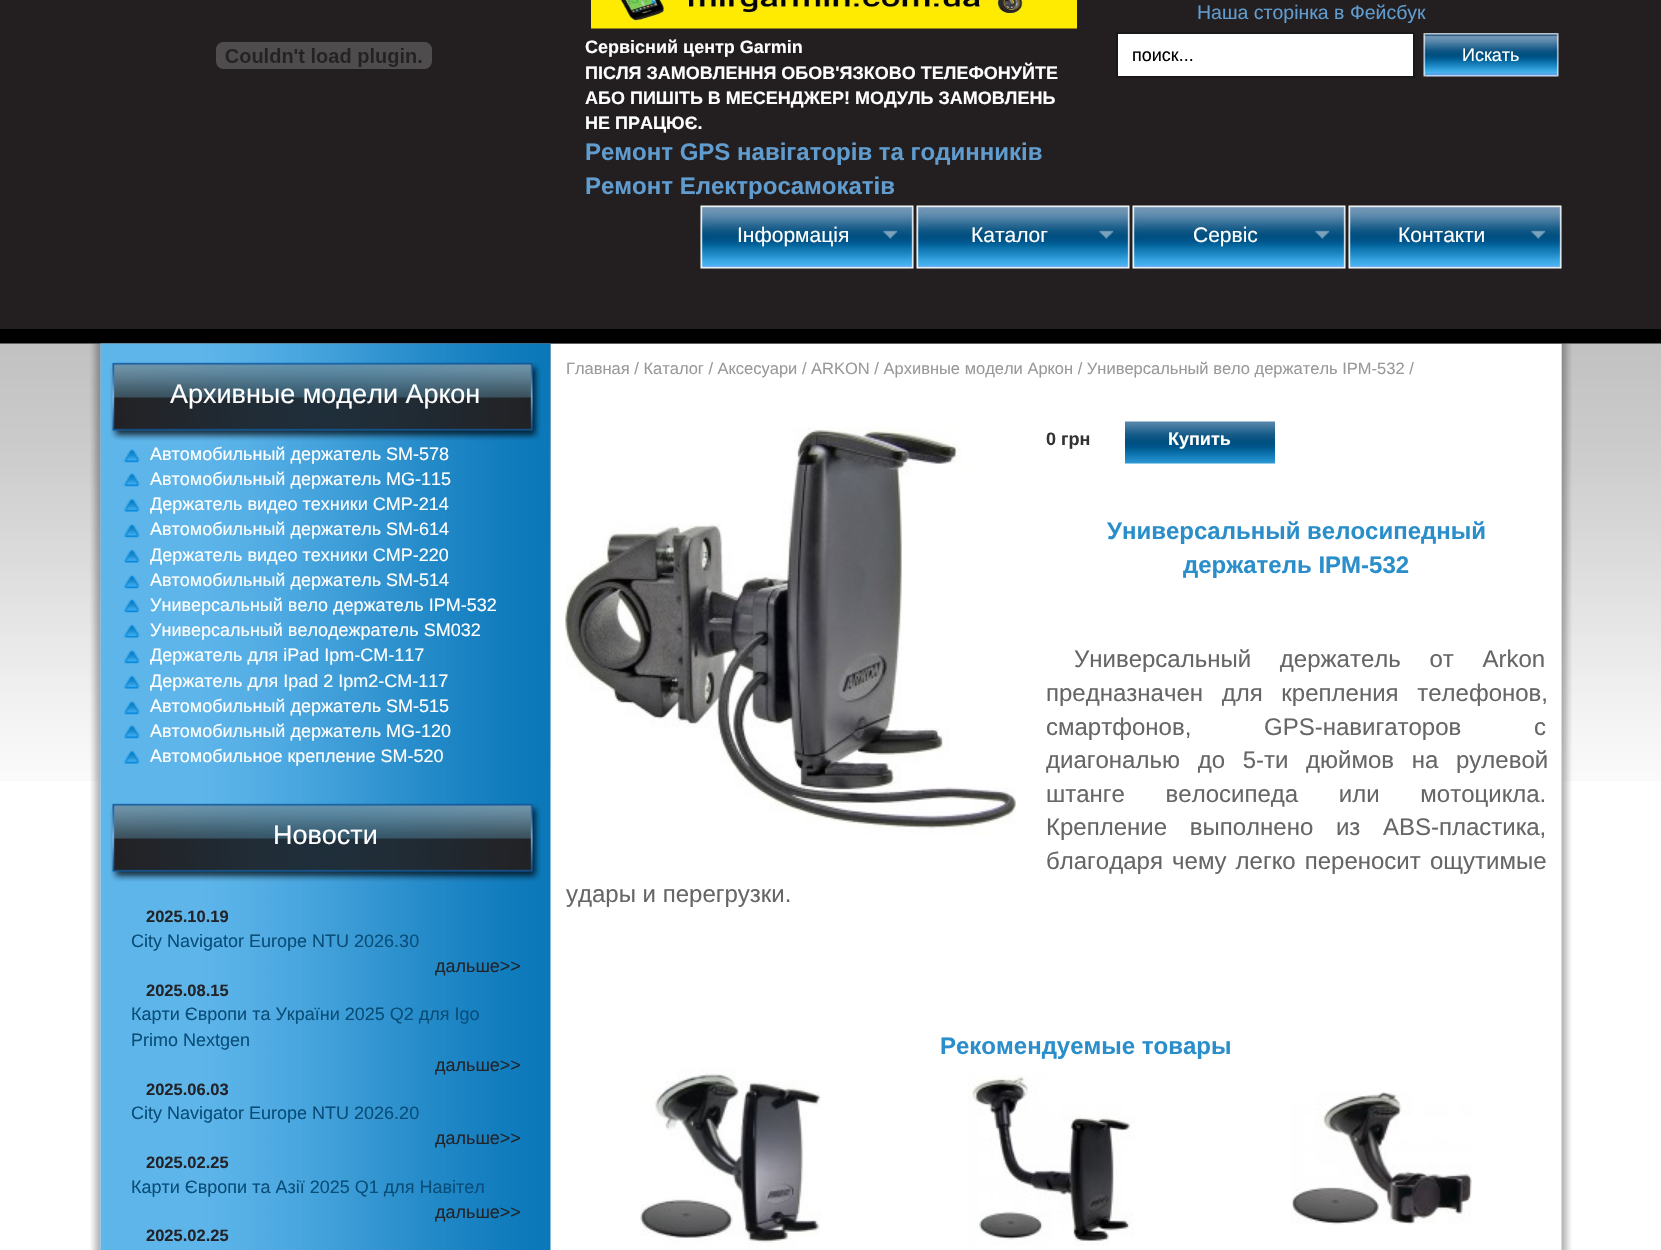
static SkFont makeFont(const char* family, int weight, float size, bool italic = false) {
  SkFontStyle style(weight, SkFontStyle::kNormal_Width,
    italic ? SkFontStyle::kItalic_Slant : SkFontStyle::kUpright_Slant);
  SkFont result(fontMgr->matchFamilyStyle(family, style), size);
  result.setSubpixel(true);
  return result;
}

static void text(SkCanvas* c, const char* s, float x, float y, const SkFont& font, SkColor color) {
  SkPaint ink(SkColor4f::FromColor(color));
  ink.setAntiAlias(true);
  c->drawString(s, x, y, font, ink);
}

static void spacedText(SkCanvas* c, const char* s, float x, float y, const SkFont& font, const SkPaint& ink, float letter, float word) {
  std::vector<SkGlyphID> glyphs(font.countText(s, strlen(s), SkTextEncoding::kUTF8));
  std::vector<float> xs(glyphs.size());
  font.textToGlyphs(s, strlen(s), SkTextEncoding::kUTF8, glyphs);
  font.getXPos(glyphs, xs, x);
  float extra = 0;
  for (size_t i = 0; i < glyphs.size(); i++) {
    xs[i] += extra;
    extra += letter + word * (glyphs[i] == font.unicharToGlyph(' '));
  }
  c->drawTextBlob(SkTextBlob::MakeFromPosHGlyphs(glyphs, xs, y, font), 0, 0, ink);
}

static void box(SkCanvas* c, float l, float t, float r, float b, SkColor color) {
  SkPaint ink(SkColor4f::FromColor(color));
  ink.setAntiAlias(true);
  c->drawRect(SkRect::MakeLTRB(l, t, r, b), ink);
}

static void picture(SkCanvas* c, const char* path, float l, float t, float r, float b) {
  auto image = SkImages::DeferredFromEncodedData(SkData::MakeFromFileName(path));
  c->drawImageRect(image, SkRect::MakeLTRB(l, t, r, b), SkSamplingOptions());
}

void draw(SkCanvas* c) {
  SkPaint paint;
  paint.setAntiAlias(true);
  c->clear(0xffffffff);
  box(c, 0, 0, 1661, 329, 0xff231f20);
  SkFont face1 = makeFont("Liberation Sans", 400, 19.5f);
  text(c, "Наша сторінка в Фейсбук", 1197, 19, face1, 0xff619ccf);
  paint.setColor(0xffffffff);
  c->drawRect(SkRect::MakeLTRB(1117, 33, 1414, 77), paint);
  paint.setStyle(SkPaint::kStroke_Style);
  paint.setStrokeWidth(2);
  paint.setColor(0xff191919);
  c->drawRect(SkRect::MakeLTRB(1117, 33, 1414, 77), paint);
  SkFont face2 = makeFont("Liberation Sans", 400, 18);
  text(c, "поиск...", 1132, 61, face2, 0xff000000);
  picture(c, "img_01.png", 1423, 33, 1559, 77);
  text(c, "Искать", 1462, 61, face2, 0xffffffff);
  picture(c, "img_02.png", 216, 42, 432, 69);
  picture(c, "img_03.png", 591, 0, 1077, 29);
  SkFont face3 = makeFont("Liberation Sans", 700, 18);
  text(c, "Сервісний центр Garmin", 585, 53, face3, 0xffffffff);
  text(c, "ПІСЛЯ ЗАМОВЛЕННЯ ОБОВ'ЯЗКОВО ТЕЛЕФОНУЙТЕ", 585, 79, face3, 0xffffffff);
  text(c, "АБО ПИШІТЬ В МЕСЕНДЖЕР! МОДУЛЬ ЗАМОВЛЕНЬ", 585, 104, face3, 0xffffffff);
  text(c, "НЕ ПРАЦЮЄ.", 585, 129, face3, 0xffffffff);
  SkFont face4 = makeFont("Liberation Sans", 700, 24);
  text(c, "Ремонт GPS навігаторів та годинників", 585, 160, face4, 0xff619ccf);
  text(c, "Ремонт Електросамокатів", 585, 194, face4, 0xff619ccf);
  picture(c, "img_04.png", 700, 205, 914, 269);
  SkFont face5 = makeFont("Liberation Sans", 400, 21);
  text(c, "Інформація", 737, 242, face5, 0xffffffff);
  picture(c, "img_05.png", 883, 230, 897, 239);
  picture(c, "img_06.png", 916, 205, 1130, 269);
  text(c, "Каталог", 971, 242, face5, 0xffffffff);
  picture(c, "img_07.png", 1099, 230, 1113, 239);
  picture(c, "img_04.png", 1132, 205, 1346, 269);
  text(c, "Сервіс", 1193, 242, face5, 0xffffffff);
  picture(c, "img_05.png", 1315, 230, 1329, 239);
  picture(c, "img_04.png", 1348, 205, 1562, 269);
  text(c, "Контакти", 1398, 242, face5, 0xffffffff);
  picture(c, "img_05.png", 1531, 230, 1545, 239);
  box(c, 0, 329, 1661, 344, 0xff000000);
  picture(c, "img_08.png", 0, 343, 1661, 781);
  picture(c, "img_09.png", 90, 343, 101, 1250);
  picture(c, "img_10.png", 100, 343, 551, 1250);
  picture(c, "img_11.png", 110, 362, 541, 441);
  SkFont face6 = makeFont("Liberation Sans", 400, 27);
  text(c, "Архивные модели Аркон", 170, 403, face6, 0xffffffff);
  picture(c, "img_12.png", 124, 449, 140, 463);
  text(c, "Автомобильный держатель SM-578", 150, 460, face2, 0xffffffff);
  picture(c, "img_12.png", 124, 473, 140, 487);
  text(c, "Автомобильный держатель MG-115", 150, 485, face2, 0xffffffff);
  picture(c, "img_13.png", 124, 498, 140, 512);
  text(c, "Держатель видео техники CMP-214", 150, 510, face2, 0xffffffff);
  picture(c, "img_12.png", 124, 524, 140, 538);
  text(c, "Автомобильный держатель SM-614", 150, 535, face2, 0xffffffff);
  picture(c, "img_13.png", 124, 549, 140, 563);
  text(c, "Держатель видео техники CMP-220", 150, 561, face2, 0xffffffff);
  picture(c, "img_12.png", 124, 575, 140, 589);
  text(c, "Автомобильный держатель SM-514", 150, 586, face2, 0xffffffff);
  picture(c, "img_12.png", 124, 599, 140, 613);
  text(c, "Универсальный вело держатель IPM-532", 150, 611, face2, 0xffffffff);
  picture(c, "img_13.png", 124, 624, 140, 638);
  text(c, "Универсальный велодежратель SM032", 150, 636, face2, 0xffffffff);
  picture(c, "img_12.png", 124, 650, 140, 664);
  text(c, "Держатель для iPad Ipm-CM-117", 150, 661, face2, 0xffffffff);
  picture(c, "img_13.png", 124, 675, 140, 689);
  text(c, "Держатель для Ipad 2 Ipm2-CM-117", 150, 687, face2, 0xffffffff);
  picture(c, "img_12.png", 124, 701, 140, 715);
  text(c, "Автомобильный держатель SM-515", 150, 712, face2, 0xffffffff);
  picture(c, "img_12.png", 124, 725, 140, 739);
  text(c, "Автомобильный держатель MG-120", 150, 737, face2, 0xffffffff);
  picture(c, "img_13.png", 124, 750, 140, 764);
  text(c, "Автомобильное крепление SM-520", 150, 762, face2, 0xffffffff);
  picture(c, "img_14.png", 110, 803, 541, 882);
  text(c, "Новости", 273, 844, face6, 0xffffffff);
  SkFont face7 = makeFont("Liberation Sans", 700, 16.5f);
  text(c, "2025.10.19", 146, 922, face7, 0xff222429);
  text(c, "City Navigator Europe NTU 2026.30", 131, 947, face2, 0xff084e79);
  text(c, "дальше>>", 435, 972, face2, 0xff222429);
  text(c, "2025.08.15", 146, 996, face7, 0xff222429);
  text(c, "Карти Європи та України 2025 Q2 для Igo", 131, 1020, face2, 0xff084e79);
  text(c, "Primo Nextgen", 131, 1046, face2, 0xff084e79);
  text(c, "дальше>>", 435, 1071, face2, 0xff222429);
  text(c, "2025.06.03", 146, 1095, face7, 0xff222429);
  text(c, "City Navigator Europe NTU 2026.20", 131, 1119, face2, 0xff084e79);
  text(c, "дальше>>", 435, 1144, face2, 0xff222429);
  text(c, "2025.02.25", 146, 1168, face7, 0xff222429);
  text(c, "Карти Європи та Азії 2025 Q1 для Навітел", 131, 1193, face2, 0xff084e79);
  text(c, "дальше>>", 435, 1218, face2, 0xff222429);
  text(c, "2025.02.25", 146, 1241, face7, 0xff222429);
  box(c, 551, 344, 1562, 781, 0xffffffff);
  SkFont face8 = makeFont("Liberation Sans", 400, 16.5f);
  text(c, "Главная / Каталог / Аксесуари / ARKON / Архивные модели Аркон / Универсальный вело держатель IPM-532 /", 566, 374, face8, 0xff999999);
  picture(c, "img_15.png", 565, 427, 1016, 835);
  text(c, "0 грн", 1046, 445, face3, 0xff333333);
  picture(c, "img_16.png", 1125, 421, 1275, 464);
  text(c, "Купить", 1168, 445, face3, 0xffffffff);
  text(c, "Универсальный велосипедный", 1107, 539, face4, 0xff2a8eca);
  text(c, "держатель IPM-532", 1183, 573, face4, 0xff2a8eca);
  SkFont face9 = makeFont("Liberation Sans", 400, 24);
  paint.setStyle(SkPaint::kFill_Style);
  paint.setColor(0xff666666);
  spacedText(c, "Универсальный держатель от Arkon", 1074, 667, face9, paint, 0, 22);
  spacedText(c, "предназначен для крепления телефонов,", 1046, 701, face9, paint, 0, 12);
  spacedText(c, "смартфонов, GPS-навигаторов с", 1046, 735, face9, paint, 0, 66);
  spacedText(c, "диагональю до 5-ти дюймов на рулевой", 1046, 768, face9, paint, 0, 11);
  spacedText(c, "штанге велосипеда или мотоцикла.", 1046, 802, face9, paint, 0, 34);
  spacedText(c, "Крепление выполнено из ABS-пластика,", 1046, 835, face9, paint, 0, 16);
  spacedText(c, "благодаря чему легко переносит ощутимые", 1046, 869, face9, paint, 0, 2.5f);
  text(c, "удары и перегрузки.", 566, 902, face9, 0xff666666);
  text(c, "Рекомендуемые товары", 940, 1054, face4, 0xff2a8eca);
  picture(c, "img_17.png", 640, 1068, 821, 1248);
  picture(c, "img_18.png", 968, 1074, 1134, 1246);
  picture(c, "img_19.png", 1291, 1091, 1472, 1225);
  picture(c, "img_20.png", 1561, 343, 1572, 1250);
}
